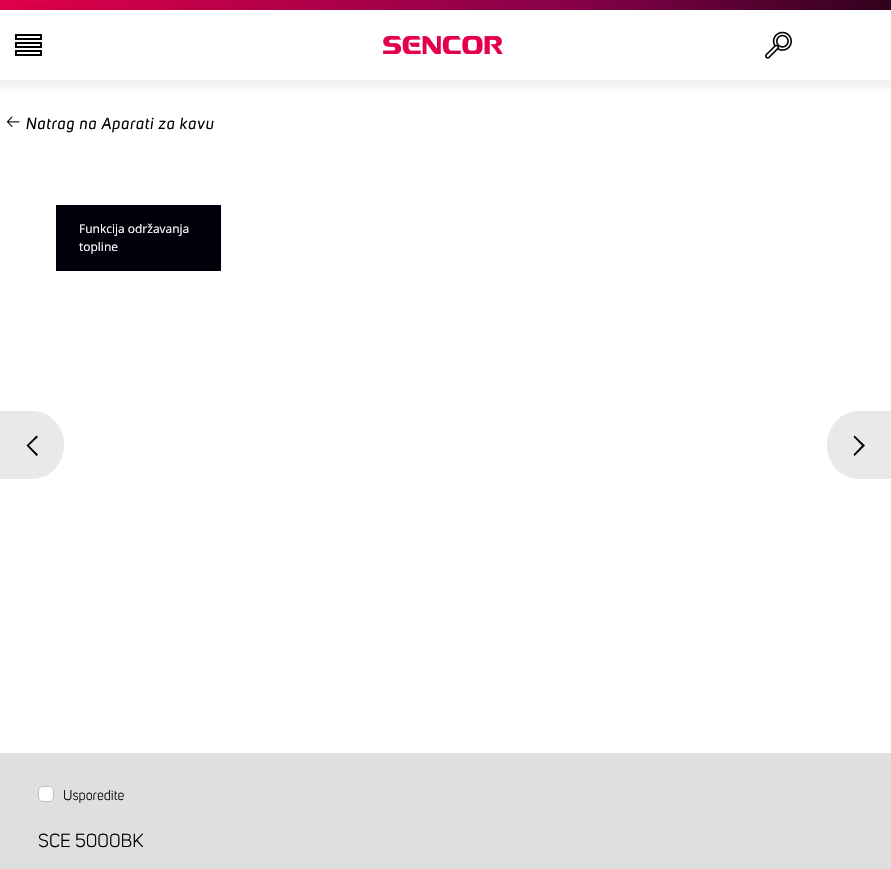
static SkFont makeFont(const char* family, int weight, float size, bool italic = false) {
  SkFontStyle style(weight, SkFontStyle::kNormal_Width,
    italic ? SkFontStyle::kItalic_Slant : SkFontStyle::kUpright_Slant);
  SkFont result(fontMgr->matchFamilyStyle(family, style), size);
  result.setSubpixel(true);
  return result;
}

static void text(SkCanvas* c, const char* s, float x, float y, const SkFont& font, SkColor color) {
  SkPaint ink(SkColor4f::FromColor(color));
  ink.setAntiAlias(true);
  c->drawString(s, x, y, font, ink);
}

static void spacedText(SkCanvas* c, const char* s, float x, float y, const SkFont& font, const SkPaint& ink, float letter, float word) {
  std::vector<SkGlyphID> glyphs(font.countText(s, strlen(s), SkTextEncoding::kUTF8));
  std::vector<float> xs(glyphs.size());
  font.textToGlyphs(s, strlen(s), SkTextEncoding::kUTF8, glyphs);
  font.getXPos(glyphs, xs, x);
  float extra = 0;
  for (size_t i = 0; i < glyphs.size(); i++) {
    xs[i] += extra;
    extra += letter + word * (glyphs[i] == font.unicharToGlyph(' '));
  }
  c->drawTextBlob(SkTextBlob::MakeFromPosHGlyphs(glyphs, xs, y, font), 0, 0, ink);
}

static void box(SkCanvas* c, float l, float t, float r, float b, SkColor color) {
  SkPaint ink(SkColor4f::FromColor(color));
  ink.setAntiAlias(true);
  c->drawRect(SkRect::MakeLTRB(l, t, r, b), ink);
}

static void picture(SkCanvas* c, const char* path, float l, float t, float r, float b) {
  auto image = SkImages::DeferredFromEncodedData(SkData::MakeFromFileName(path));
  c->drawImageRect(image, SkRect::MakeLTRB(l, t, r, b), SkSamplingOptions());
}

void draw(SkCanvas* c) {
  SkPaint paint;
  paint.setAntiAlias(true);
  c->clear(0xffdfdfdf);
  {
    const SkColor colors[] = {0xff31011d, 0xff88004a, 0xffe3004a};
    const float stops[] = {0, 0.35f, 1};
    const SkPoint ends[] = {{891, 5}, {0, 5}};
    paint.setShader(SkGradientShader::MakeLinear(ends, colors, stops, 3, SkTileMode::kClamp));
    paint.setAlpha(255);
  }
  c->drawRect(SkRect::MakeLTRB(0, 0, 891, 10), paint);
  box(c, 0, 82, 891, 753, 0xffffffff);
  paint.setShader(nullptr);
  paint.setColor(0x0d000001);
  paint.setMaskFilter(SkMaskFilter::MakeBlur(kNormal_SkBlurStyle, 2.5f));
  c->drawRect(SkRect::MakeLTRB(-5, 6, 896, 88), paint);
  paint.setMaskFilter(nullptr);
  box(c, 0, 10, 891, 80, 0xffffffff);
  box(c, 0, 80, 891, 82, 0xfff3f3f3);
  paint.setStyle(SkPaint::kStroke_Style);
  paint.setStrokeWidth(2);
  paint.setColor(0xff000001);
  c->drawRect(SkRect::MakeLTRB(16, 43, 41, 47), paint);
  c->drawRect(SkRect::MakeLTRB(16, 35, 41, 39), paint);
  c->drawRect(SkRect::MakeLTRB(16, 51, 41, 55), paint);
  picture(c, "img_01.png", 383, 36, 503, 54);
  picture(c, "img_02.png", 765, 31, 792, 59);
  picture(c, "img_03.png", 6, 116, 20, 127);
  SkFont face1 = makeFont("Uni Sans", 400, 16, true);
  paint.setStyle(SkPaint::kFill_Style);
  spacedText(c, "Natrag na Aparati za kavu", 26, 129, face1, paint, 0.75f, 0);
  box(c, 56, 205, 221, 271, 0xff00000b);
  SkFont face2 = makeFont("Open Sans", 400, 12);
  text(c, "Funkcija održavanja", 79, 233, face2, 0xffffffff);
  text(c, "topline", 79, 251, face2, 0xffffffff);
  paint.setColor(0xffe9e9e9);
  c->drawPath(SkPathBuilder().moveTo(0, 411).lineTo(32, 411).cubicTo(50, 411, 64, 426, 64, 445).cubicTo(64, 464, 50, 479, 32, 479).lineTo(0, 479).close().detach(), paint);
  paint.setColor(0xff000001);
  c->drawPath(SkPathBuilder().moveTo(36.5f, 456).lineTo(26.5f, 445.5f).lineTo(36.5f, 435.5f).lineTo(38, 437).lineTo(29, 445.5f).lineTo(38, 454.5f).close().detach(), paint);
  paint.setColor(0xffe9e9e9);
  c->drawPath(SkPathBuilder().moveTo(859, 411).lineTo(891, 411).lineTo(891, 479).lineTo(859, 479).cubicTo(841, 479, 827, 464, 827, 445).cubicTo(827, 426, 841, 411, 859, 411).close().detach(), paint);
  paint.setColor(0xff000001);
  c->drawPath(SkPathBuilder().moveTo(854.5f, 435.5f).lineTo(865, 445.5f).lineTo(854.5f, 456).lineTo(853.5f, 454.5f).lineTo(862, 445.5f).lineTo(853.5f, 437).close().detach(), paint);
  paint.setColor(0xffffffff);
  c->drawRoundRect(SkRect::MakeLTRB(38.5f, 786.5f, 53.5f, 801.5f), 4.5f, 4.5f, paint);
  paint.setStyle(SkPaint::kStroke_Style);
  paint.setStrokeWidth(1);
  paint.setColor(0xffc3c2c2);
  c->drawRoundRect(SkRect::MakeLTRB(38.5f, 786.5f, 53.5f, 801.5f), 4.5f, 4.5f, paint);
  SkFont face3 = makeFont("Uni Sans", 400, 14);
  text(c, "Usporedite", 63, 800, face3, 0xff000001);
  SkFont face4 = makeFont("Uni Sans", 400, 18.75f);
  text(c, "SCE 5000BK", 38, 847, face4, 0xff000001);
}
